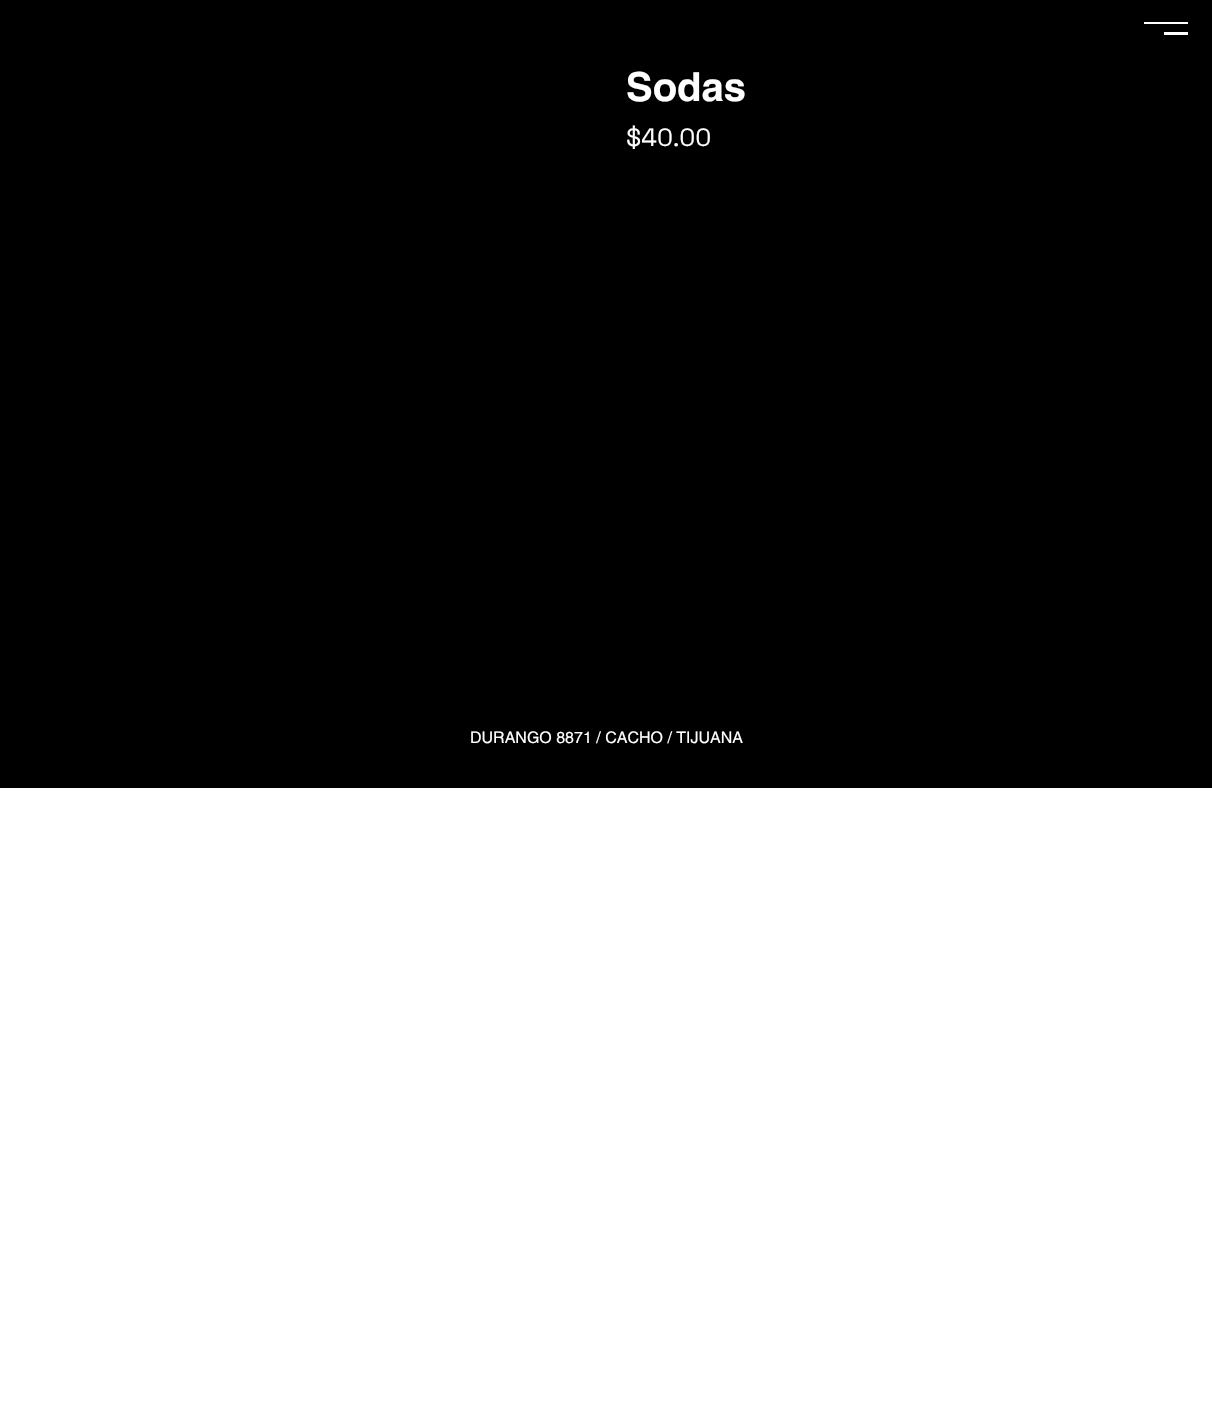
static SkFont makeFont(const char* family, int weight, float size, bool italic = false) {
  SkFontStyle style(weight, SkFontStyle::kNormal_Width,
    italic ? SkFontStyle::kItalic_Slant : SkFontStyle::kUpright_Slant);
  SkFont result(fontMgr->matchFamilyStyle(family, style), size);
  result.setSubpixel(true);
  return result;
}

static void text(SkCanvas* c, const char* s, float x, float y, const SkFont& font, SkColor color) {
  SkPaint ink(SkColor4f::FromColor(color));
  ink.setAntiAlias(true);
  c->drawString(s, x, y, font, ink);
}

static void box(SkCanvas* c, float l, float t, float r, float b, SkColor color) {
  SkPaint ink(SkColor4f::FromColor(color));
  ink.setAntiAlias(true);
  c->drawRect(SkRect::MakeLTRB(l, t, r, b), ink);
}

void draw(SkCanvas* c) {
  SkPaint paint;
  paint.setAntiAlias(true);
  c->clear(0xffffffff);
  box(c, 0, 0, 1212, 788, 0xff000000);
  box(c, 1144, 22, 1188, 24, 0xffffffff);
  box(c, 1164, 32, 1188, 35, 0xffffffff);
  SkFont face1 = makeFont("helvetica", 700, 40);
  text(c, "Sodas", 626, 101, face1, 0xffffffff);
  SkFont face2 = makeFont("Space Grotesk", 400, 25);
  text(c, "$40.00", 626, 146, face2, 0xffffffff);
  SkFont face3 = makeFont("helvetica", 400, 16);
  text(c, "DURANGO 8871 / CACHO / TIJUANA", 470, 743, face3, 0xffffffff);
}
